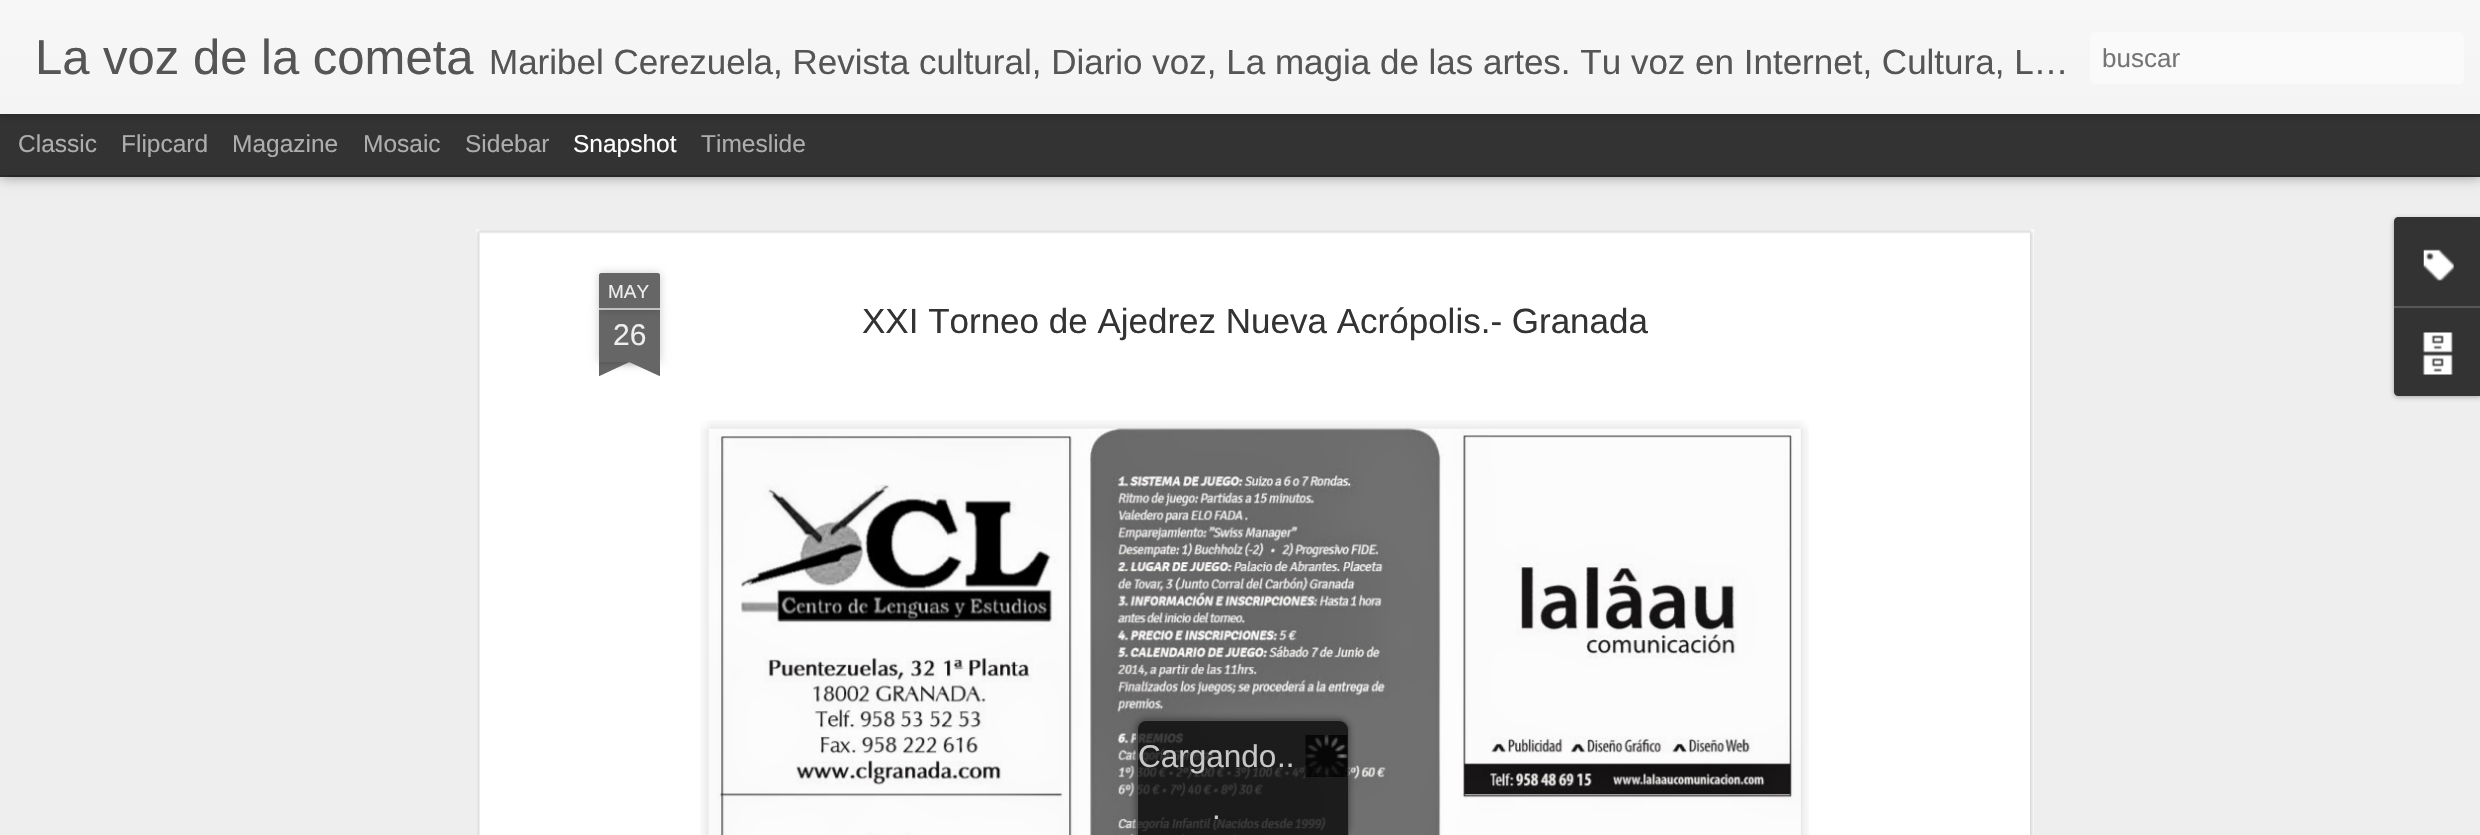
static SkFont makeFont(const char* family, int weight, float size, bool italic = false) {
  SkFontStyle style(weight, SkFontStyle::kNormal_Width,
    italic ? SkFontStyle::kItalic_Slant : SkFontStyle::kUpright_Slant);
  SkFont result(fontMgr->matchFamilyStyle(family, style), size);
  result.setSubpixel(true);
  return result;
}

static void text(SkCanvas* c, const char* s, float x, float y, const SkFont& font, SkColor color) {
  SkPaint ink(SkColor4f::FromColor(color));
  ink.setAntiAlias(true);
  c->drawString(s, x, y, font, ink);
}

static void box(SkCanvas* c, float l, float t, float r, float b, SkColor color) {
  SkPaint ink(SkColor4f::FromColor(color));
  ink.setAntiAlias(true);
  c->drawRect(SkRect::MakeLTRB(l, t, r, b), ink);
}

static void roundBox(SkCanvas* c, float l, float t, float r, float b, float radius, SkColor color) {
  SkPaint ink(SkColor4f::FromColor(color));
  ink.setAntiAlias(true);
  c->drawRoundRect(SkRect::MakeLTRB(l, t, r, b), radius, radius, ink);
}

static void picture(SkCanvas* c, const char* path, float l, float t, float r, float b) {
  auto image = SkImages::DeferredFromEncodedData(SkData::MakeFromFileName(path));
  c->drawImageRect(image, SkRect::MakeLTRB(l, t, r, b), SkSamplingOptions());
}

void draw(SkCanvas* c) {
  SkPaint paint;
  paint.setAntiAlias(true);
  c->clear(0xff333333);
  box(c, 0, 177, 2480, 835, 0xffeeeeee);
  paint.setColor(0x80000000);
  paint.setMaskFilter(SkMaskFilter::MakeBlur(kNormal_SkBlurStyle, 7));
  c->drawRect(SkRect::MakeLTRB(0, 114, 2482, 175), paint);
  paint.setMaskFilter(nullptr);
  box(c, 0, 114, 2480, 175, 0xff333333);
  paint.setColor(0x4d000000);
  paint.setMaskFilter(SkMaskFilter::MakeBlur(kNormal_SkBlurStyle, 4.5f));
  c->drawRect(SkRect::MakeLTRB(0, 0, 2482, 114), paint);
  paint.setMaskFilter(nullptr);
  {
    const SkColor colors[] = {0xfff7f7f7, 0xfff4f4f4};
    const float stops[] = {0, 1};
    const SkPoint ends[] = {{0, 0}, {0, 114}};
    paint.setShader(SkGradientShader::MakeLinear(ends, colors, stops, 2, SkTileMode::kClamp));
    paint.setAlpha(255);
  }
  c->drawRect(SkRect::MakeLTRB(0, 0, 2480, 114), paint);
  SkFont face1 = makeFont("Liberation Sans", 400, 49);
  text(c, "La voz de la cometa", 35, 74, face1, 0xff555555);
  SkFont face2 = makeFont("Liberation Sans", 400, 35);
  text(c, "Maribel Cerezuela, Revista cultural, Diario voz, La magia de las artes. Tu voz en Internet, Cultura, L…", 489, 74, face2, 0xff555555);
  roundBox(c, 2090, 32, 2464, 84, 5, 0xfffafafa);
  SkFont face3 = makeFont("Liberation Sans", 400, 26);
  text(c, "buscar", 2102, 67, face3, 0xff757575);
  SkFont face4 = makeFont("Liberation Sans", 400, 24.5f);
  text(c, "Classic", 18, 152, face4, 0xffadadad);
  text(c, "Flipcard", 121, 152, face4, 0xffadadad);
  text(c, "Magazine", 232, 152, face4, 0xffadadad);
  text(c, "Mosaic", 363, 152, face4, 0xffadadad);
  text(c, "Sidebar", 465, 152, face4, 0xffadadad);
  text(c, "Snapshot", 573, 152, face4, 0xffffffff);
  text(c, "Timeslide", 701, 152, face4, 0xffadadad);
  box(c, 476, 229, 2034, 835, 0xffffffff);
  picture(c, "img_01.png", 476, 229, 2034, 835);
  paint.setShader(nullptr);
  paint.setColor(0x33000000);
  paint.setMaskFilter(SkMaskFilter::MakeBlur(kNormal_SkBlurStyle, 4.5f));
  c->drawRect(SkRect::MakeLTRB(599, 310, 660, 362), paint);
  paint.setMaskFilter(nullptr);
  box(c, 599, 310, 660, 362, 0xff666666);
  paint.setMaskFilter(SkMaskFilter::MakeBlur(kNormal_SkBlurStyle, 4.5f));
  c->drawRoundRect(SkRect::MakeLTRB(599, 273, 660, 310), 2, 2, paint);
  paint.setMaskFilter(nullptr);
  paint.setColor(0xff666666);
  c->drawPath(SkPathBuilder().moveTo(601, 273).lineTo(658, 273).cubicTo(659, 273, 660, 274, 660, 275).lineTo(660, 310).lineTo(599, 310).lineTo(599, 275).cubicTo(599, 274, 600, 273, 601, 273).close().detach(), paint);
  box(c, 599, 308, 660, 310, 0xffc2c2c2);
  SkFont face5 = makeFont("Liberation Sans", 400, 19);
  text(c, "MAY", 608, 298, face5, 0xffeeeeee);
  SkFont face6 = makeFont("Liberation Sans", 400, 30);
  text(c, "26", 613, 345, face6, 0xffeeeeee);
  c->save();
  c->clipRect(SkRect::MakeLTRB(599, 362, 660, 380));
  paint.setColor(0x33000000);
  paint.setMaskFilter(SkMaskFilter::MakeBlur(kNormal_SkBlurStyle, 4.5f));
  c->drawRect(SkRect::MakeLTRB(583, 345, 670, 362), paint);
  paint.setMaskFilter(nullptr);
  c->restore();
  c->save();
  c->clipRect(SkRect::MakeLTRB(599, 362, 660, 380));
  paint.setColor(0xff666666);
  c->drawPath(SkPathBuilder().moveTo(583, 364).lineTo(662, 327).lineTo(670, 343).lineTo(591, 380).close().detach(), paint);
  c->restore();
  c->save();
  c->clipRect(SkRect::MakeLTRB(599, 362, 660, 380));
  paint.setColor(0x33000000);
  paint.setMaskFilter(SkMaskFilter::MakeBlur(kNormal_SkBlurStyle, 4.5f));
  c->drawRect(SkRect::MakeLTRB(588, 345, 676, 362), paint);
  paint.setMaskFilter(nullptr);
  c->restore();
  c->save();
  c->clipRect(SkRect::MakeLTRB(599, 362, 660, 380));
  paint.setColor(0xff666666);
  c->drawPath(SkPathBuilder().moveTo(596, 327).lineTo(675, 364).lineTo(668, 380).lineTo(588, 343).close().detach(), paint);
  c->restore();
  text(c, "XXI Torneo de Ajedrez Nueva Acrópolis.- Granada", 862, 333, face2, 0xff333333);
  picture(c, "img_02.png", 700, 420, 1809, 835);
  picture(c, "img_03.png", 708, 428, 1801, 835);
  paint.setColor(0x4d000000);
  paint.setMaskFilter(SkMaskFilter::MakeBlur(kNormal_SkBlurStyle, 2.5f));
  c->drawRoundRect(SkRect::MakeLTRB(2394, 219, 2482, 397), 4, 4, paint);
  paint.setMaskFilter(nullptr);
  paint.setColor(0xff333333);
  c->drawPath(SkPathBuilder().moveTo(2398, 217).lineTo(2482, 217).lineTo(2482, 306).lineTo(2394, 306).lineTo(2394, 221).cubicTo(2394, 219, 2396, 217, 2398, 217).close().detach(), paint);
  picture(c, "img_04.png", 2423, 249, 2454, 281);
  c->drawPath(SkPathBuilder().moveTo(2394, 306).lineTo(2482, 306).lineTo(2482, 396).lineTo(2398, 396).cubicTo(2396, 396, 2394, 394, 2394, 392).close().detach(), paint);
  box(c, 2394, 306, 2480, 308, 0xff585858);
  picture(c, "img_05.png", 2422, 332, 2453, 375);
  c->save();
  c->clipPath(SkPathBuilder(SkPathFillType::kEvenOdd).moveTo(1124, 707).lineTo(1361, 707).lineTo(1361, 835).lineTo(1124, 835).close().moveTo(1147, 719).lineTo(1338, 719).cubicTo(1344, 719, 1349, 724, 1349, 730).lineTo(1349, 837).lineTo(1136, 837).lineTo(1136, 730).cubicTo(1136, 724, 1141, 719, 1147, 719).close().detach(), true);
  paint.setColor(0xbf333333);
  paint.setMaskFilter(SkMaskFilter::MakeBlur(kNormal_SkBlurStyle, 3.5f));
  c->drawRoundRect(SkRect::MakeLTRB(1136, 719, 1349, 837), 11, 11, paint);
  paint.setMaskFilter(nullptr);
  c->restore();
  paint.setColor(0xbf000000);
  c->drawPath(SkPathBuilder().moveTo(1147, 719).lineTo(1338, 719).cubicTo(1344, 719, 1349, 724, 1349, 730).lineTo(1349, 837).lineTo(1136, 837).lineTo(1136, 730).cubicTo(1136, 724, 1141, 719, 1147, 719).close().detach(), paint);
  paint.setColor(0xbf666666);
  c->drawPath(SkPathBuilder(SkPathFillType::kEvenOdd).moveTo(1146, 719).lineTo(1339, 719).cubicTo(1345, 719, 1349, 724, 1349, 730).lineTo(1349, 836).lineTo(1136, 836).lineTo(1136, 730).cubicTo(1136, 724, 1140, 719, 1146, 719).close().moveTo(1146, 721).lineTo(1339, 721).cubicTo(1344, 721, 1348, 725, 1348, 730).lineTo(1348, 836).lineTo(1138, 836).lineTo(1138, 730).cubicTo(1138, 725, 1141, 721, 1146, 721).close().detach(), paint);
  picture(c, "img_06.png", 1305, 735, 1348, 777);
  SkFont face7 = makeFont("Liberation Sans", 400, 31.5f);
  text(c, "Cargando", 1138, 767, face7, 0xffc7c7c7);
  text(c, "..", 1277, 767, face7, 0xffc7c7c7);
  text(c, ".", 1212, 819, face7, 0xffc7c7c7);
}
